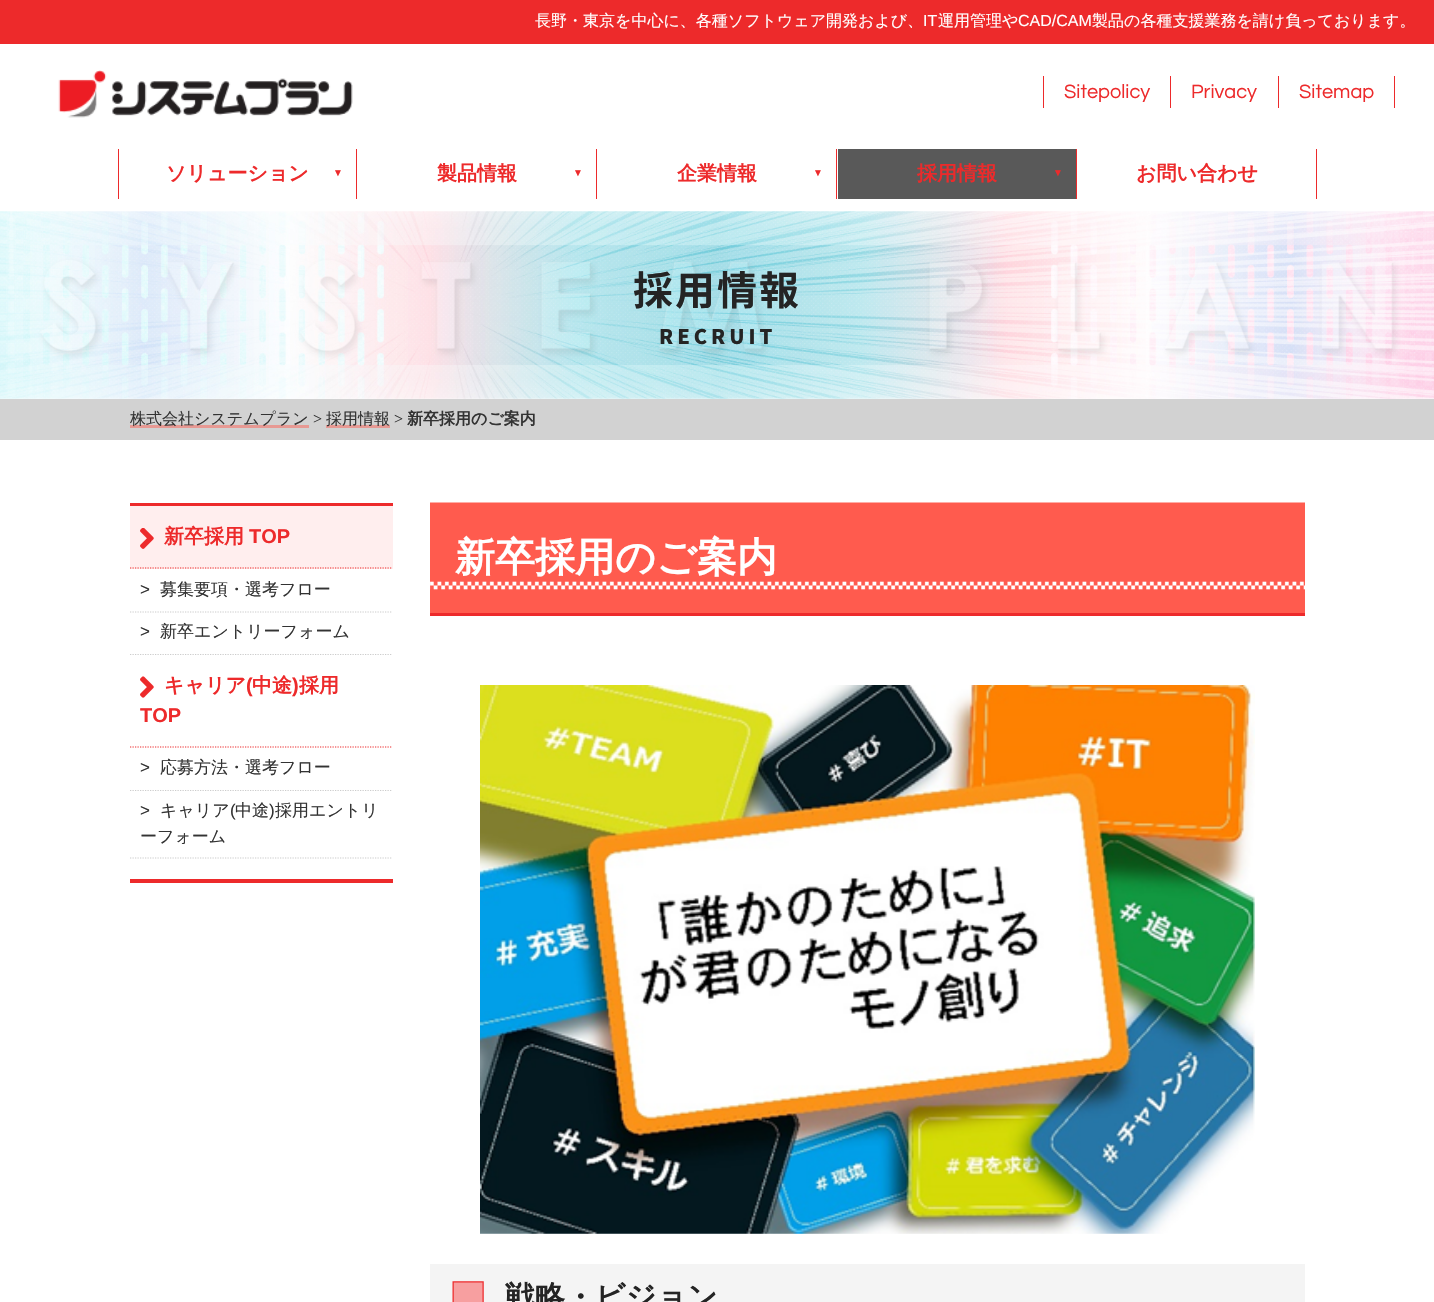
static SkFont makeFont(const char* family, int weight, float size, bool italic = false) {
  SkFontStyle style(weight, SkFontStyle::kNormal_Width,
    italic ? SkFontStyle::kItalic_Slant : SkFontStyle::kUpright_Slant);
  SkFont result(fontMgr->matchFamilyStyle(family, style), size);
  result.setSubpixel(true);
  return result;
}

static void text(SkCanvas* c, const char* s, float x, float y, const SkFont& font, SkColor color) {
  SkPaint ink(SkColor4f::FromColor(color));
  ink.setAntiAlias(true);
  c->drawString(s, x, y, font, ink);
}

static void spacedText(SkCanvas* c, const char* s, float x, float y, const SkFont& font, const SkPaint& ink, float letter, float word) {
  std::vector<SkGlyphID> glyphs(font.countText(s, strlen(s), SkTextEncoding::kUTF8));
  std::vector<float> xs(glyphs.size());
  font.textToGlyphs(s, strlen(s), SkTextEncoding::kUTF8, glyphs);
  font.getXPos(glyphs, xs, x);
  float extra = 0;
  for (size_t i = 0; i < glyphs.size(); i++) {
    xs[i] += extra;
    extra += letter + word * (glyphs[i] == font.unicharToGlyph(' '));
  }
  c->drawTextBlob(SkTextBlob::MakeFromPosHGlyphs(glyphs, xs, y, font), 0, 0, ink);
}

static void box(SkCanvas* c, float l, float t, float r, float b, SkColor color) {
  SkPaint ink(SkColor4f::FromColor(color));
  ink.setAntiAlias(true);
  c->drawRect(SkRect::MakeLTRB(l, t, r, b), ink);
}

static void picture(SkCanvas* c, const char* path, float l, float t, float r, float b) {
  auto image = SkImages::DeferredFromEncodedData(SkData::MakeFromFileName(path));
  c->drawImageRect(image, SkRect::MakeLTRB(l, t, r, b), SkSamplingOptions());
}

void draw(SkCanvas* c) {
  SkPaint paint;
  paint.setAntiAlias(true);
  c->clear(0xffffffff);
  box(c, 0, 0, 1434, 44, 0xffed2a2b);
  SkFont face1 = makeFont("WenQuanYi Zen Hei", 500, 16);
  text(c, "長野・東京を中心に、各種ソフトウェア開発および、", 535, 26, face1, 0xffffffff);
  SkFont face2 = makeFont("Liberation Sans", 400, 16);
  text(c, "IT", 923, 26, face2, 0xffffffff);
  text(c, "運用管理や", 938, 26, face1, 0xffffffff);
  text(c, "CAD/CAM", 1018, 26, face2, 0xffffffff);
  text(c, "製品の各種支援業務を請け負っております。", 1092, 26, face1, 0xffffffff);
  picture(c, "img_01.png", 58, 70, 353, 118);
  SkFont face3 = makeFont("Questrial", 400, 20);
  text(c, "Sitepolicy", 1064, 98, face3, 0xffed2a2b);
  box(c, 1170, 76, 1171, 108, 0xffed2a2b);
  box(c, 1043, 76, 1044, 108, 0xffed2a2b);
  text(c, "Privacy", 1191, 98, face3, 0xffed2a2b);
  box(c, 1278, 76, 1279, 108, 0xffed2a2b);
  text(c, "Sitemap", 1299, 98, face3, 0xffed2a2b);
  box(c, 1394, 76, 1395, 108, 0xffed2a2b);
  box(c, 356, 149, 357, 199, 0xffed2a2b);
  box(c, 118, 149, 119, 199, 0xffed2a2b);
  SkFont face4 = makeFont("WenQuanYi Zen Hei", 700, 20);
  text(c, "ソリューション", 166, 180, face4, 0xffed2a2b);
  SkFont face5 = makeFont("Liberation Sans", 400, 10, true);
  text(c, "▼", 333, 176, face5, 0xffed2a2b);
  box(c, 596, 149, 597, 199, 0xffed2a2b);
  text(c, "製品情報", 437, 180, face4, 0xffed2a2b);
  text(c, "▼", 573, 176, face5, 0xffed2a2b);
  box(c, 836, 149, 837, 199, 0xffed2a2b);
  text(c, "企業情報", 677, 180, face4, 0xffed2a2b);
  text(c, "▼", 813, 176, face5, 0xffed2a2b);
  box(c, 1076, 149, 1077, 199, 0xffed2a2b);
  box(c, 838, 149, 1076, 199, 0xff595959);
  text(c, "採用情報", 917, 180, face4, 0xffed2a2b);
  text(c, "▼", 1053, 176, face5, 0xffed2a2b);
  box(c, 1316, 149, 1317, 199, 0xffed2a2b);
  text(c, "お問い合わせ", 1136, 180, face4, 0xffed2a2b);
  picture(c, "img_02.png", 0, 211, 1434, 399);
  SkFont face6 = makeFont("Noto Sans JP", 700, 40);
  paint.setColor(0xff242424);
  spacedText(c, "採用情報", 633, 305, face6, paint, 2, 0);
  SkFont face7 = makeFont("Noto Sans JP", 900, 20);
  spacedText(c, "RECRUIT", 659, 344, face7, paint, 4, 0);
  box(c, 0, 399, 1434, 440, 0xffd2d2d2);
  box(c, 130, 425, 309, 428, 0xffe79993);
  text(c, "株式会社システムプラン", 130, 424, face1, 0xff333333);
  SkFont face8 = makeFont("Liberation Serif", 400, 16);
  text(c, ">", 313, 424, face8, 0xff333333);
  box(c, 326, 425, 390, 428, 0xffe79993);
  text(c, "採用情報", 326, 424, face1, 0xff333333);
  text(c, ">", 394, 424, face8, 0xff333333);
  SkFont face9 = makeFont("WenQuanYi Zen Hei", 700, 16);
  text(c, "新卒採用のご案内", 407, 424, face9, 0xff333333);
  box(c, 130, 503, 393, 506, 0xffed2a2b);
  box(c, 130, 879, 393, 883, 0xffed2a2b);
  box(c, 130, 506, 393, 569, 0xffffeeee);
  paint.setStyle(SkPaint::kStroke_Style);
  paint.setStrokeWidth(1.2f);
  paint.setColor(0xffed2a2b);
  paint.setPathEffect(SkDashPathEffect::Make({{1.25f, 1.25f}}, 0));
  c->drawPath(SkPathBuilder().moveTo(130, 568).lineTo(392.5f, 568).detach(), paint);
  paint.setPathEffect(nullptr);
  picture(c, "img_03.png", 140, 528, 154, 549);
  text(c, "新卒採用", 164, 543, face4, 0xffed2a2b);
  SkFont face10 = makeFont("Liberation Sans", 700, 20);
  text(c, "TOP", 249, 543, face10, 0xffed2a2b);
  paint.setColor(0xffcccccc);
  paint.setPathEffect(SkDashPathEffect::Make({{1.25f, 1.25f}}, 0));
  c->drawPath(SkPathBuilder().moveTo(130, 612).lineTo(392.5f, 612).detach(), paint);
  paint.setPathEffect(nullptr);
  SkFont face11 = makeFont("Liberation Sans", 400, 17);
  text(c, ">", 140, 595, face11, 0xff333333);
  SkFont face12 = makeFont("WenQuanYi Zen Hei", 500, 17);
  text(c, "募集要項・選考フロー", 160, 595, face12, 0xff333333);
  paint.setPathEffect(SkDashPathEffect::Make({{1.25f, 1.25f}}, 0));
  c->drawPath(SkPathBuilder().moveTo(130, 654.5f).lineTo(392.5f, 654.5f).detach(), paint);
  paint.setPathEffect(nullptr);
  text(c, ">", 140, 637, face11, 0xff333333);
  text(c, "新卒エントリーフォーム", 160, 637, face12, 0xff333333);
  paint.setColor(0xffed2a2b);
  paint.setPathEffect(SkDashPathEffect::Make({{1.25f, 1.25f}}, 0));
  c->drawPath(SkPathBuilder().moveTo(130, 747).lineTo(392.5f, 747).detach(), paint);
  paint.setPathEffect(nullptr);
  picture(c, "img_04.png", 140, 676, 154, 698);
  text(c, "キャリア", 164, 692, face4, 0xffed2a2b);
  text(c, "(", 246, 692, face10, 0xffed2a2b);
  text(c, "中途", 252, 692, face4, 0xffed2a2b);
  text(c, ")", 292, 692, face10, 0xffed2a2b);
  text(c, "採用", 299, 692, face4, 0xffed2a2b);
  text(c, "TOP", 140, 722, face10, 0xffed2a2b);
  paint.setColor(0xffcccccc);
  paint.setPathEffect(SkDashPathEffect::Make({{1.25f, 1.25f}}, 0));
  c->drawPath(SkPathBuilder().moveTo(130, 790.5f).lineTo(392.5f, 790.5f).detach(), paint);
  paint.setPathEffect(nullptr);
  text(c, ">", 140, 773, face11, 0xff333333);
  text(c, "応募方法・選考フロー", 160, 773, face12, 0xff333333);
  paint.setPathEffect(SkDashPathEffect::Make({{1.25f, 1.25f}}, 0));
  c->drawPath(SkPathBuilder().moveTo(130, 858).lineTo(392.5f, 858).detach(), paint);
  paint.setPathEffect(nullptr);
  text(c, ">", 140, 816, face11, 0xff333333);
  text(c, "キャリア", 160, 816, face12, 0xff333333);
  text(c, "(", 230, 816, face11, 0xff333333);
  text(c, "中途", 235, 816, face12, 0xff333333);
  text(c, ")", 269, 816, face11, 0xff333333);
  text(c, "採用エントリ", 275, 816, face12, 0xff333333);
  text(c, "ーフォーム", 140, 842, face12, 0xff333333);
  box(c, 430, 590, 1305, 613, 0xffff5b4e);
  picture(c, "img_05.png", 430, 502, 1305, 590);
  box(c, 430, 613, 1305, 616, 0xffed2a2b);
  SkFont face13 = makeFont("WenQuanYi Zen Hei", 700, 40);
  text(c, "新卒採用のご案内", 455, 571, face13, 0xffffffff);
  picture(c, "img_06.png", 480, 685, 1255, 1234);
  box(c, 430, 1264, 1305, 1302, 0xfff4f4f4);
  picture(c, "img_07.png", 452, 1281, 484, 1302);
  SkFont face14 = makeFont("WenQuanYi Zen Hei", 700, 30);
  text(c, "戦略・ビジョン", 505, 1307, face14, 0xff242424);
}
